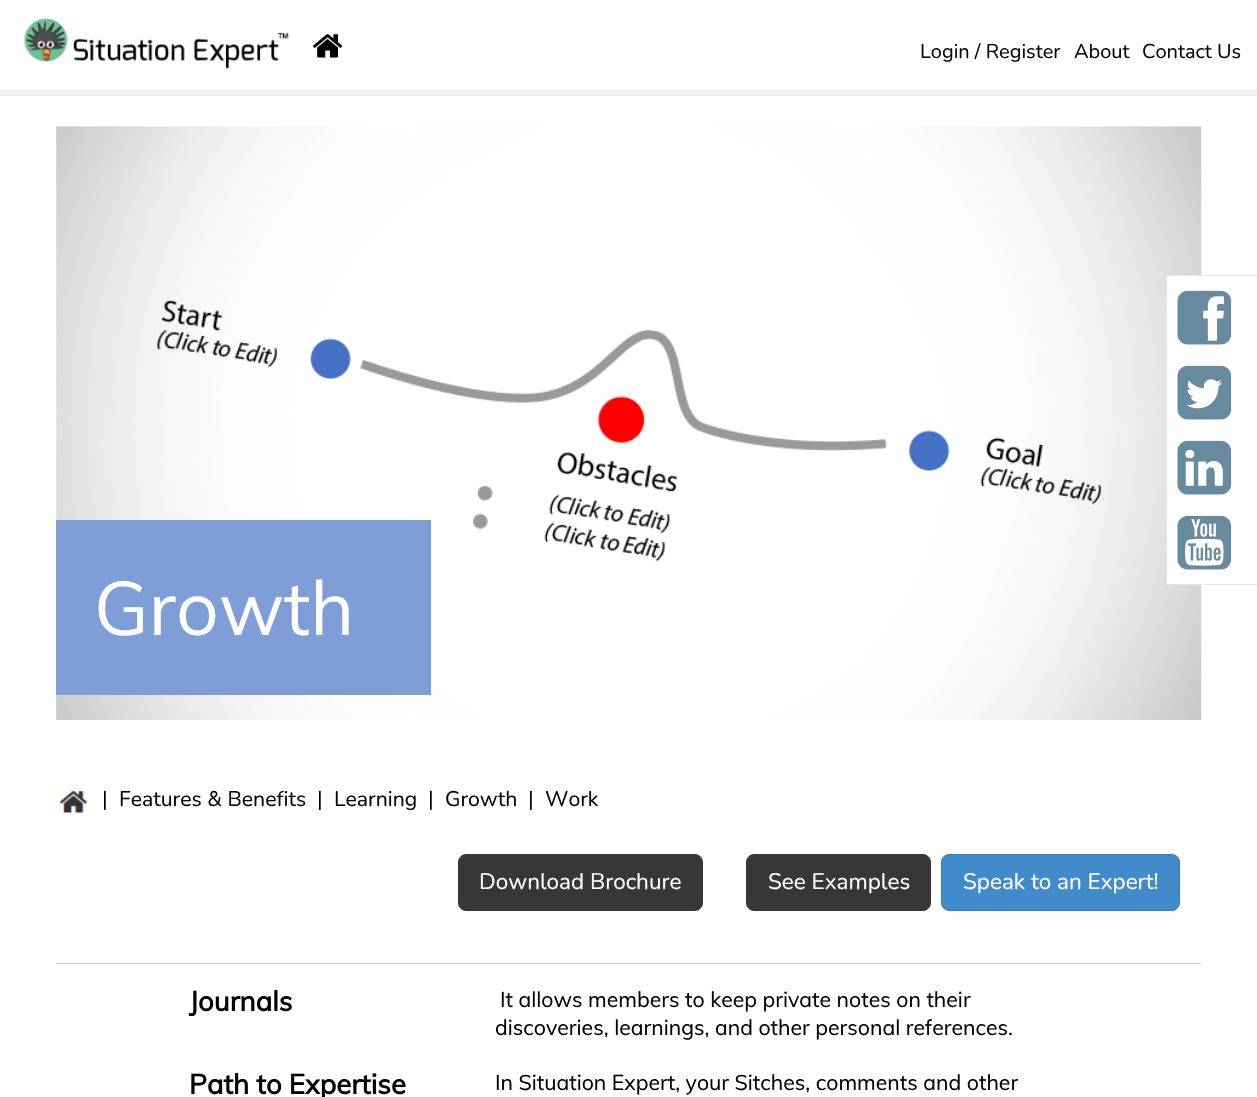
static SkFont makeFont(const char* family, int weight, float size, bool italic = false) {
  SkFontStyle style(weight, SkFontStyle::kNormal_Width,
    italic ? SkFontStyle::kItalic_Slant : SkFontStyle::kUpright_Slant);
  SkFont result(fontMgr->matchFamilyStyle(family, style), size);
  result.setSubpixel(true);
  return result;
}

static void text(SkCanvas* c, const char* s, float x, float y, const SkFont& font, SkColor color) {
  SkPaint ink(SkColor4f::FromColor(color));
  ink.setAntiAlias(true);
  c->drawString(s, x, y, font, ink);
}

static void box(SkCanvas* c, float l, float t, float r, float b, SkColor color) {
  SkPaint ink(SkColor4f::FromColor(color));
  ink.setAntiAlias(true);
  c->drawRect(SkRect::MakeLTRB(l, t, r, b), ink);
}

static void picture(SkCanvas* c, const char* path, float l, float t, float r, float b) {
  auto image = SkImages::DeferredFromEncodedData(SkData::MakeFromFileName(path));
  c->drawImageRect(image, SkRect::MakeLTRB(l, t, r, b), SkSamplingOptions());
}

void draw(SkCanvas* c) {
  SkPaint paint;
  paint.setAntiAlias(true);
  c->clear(0xffffffff);
  box(c, 0, 90, 1257, 96, 0xfff1f1f1);
  picture(c, "img_01.png", 23, 17, 289, 69);
  picture(c, "img_02.png", 313, 34, 343, 58);
  SkFont face1 = makeFont("Nunito", 400, 20);
  text(c, "Login / Register", 920, 58, face1, 0xff080707);
  text(c, "About", 1074, 58, face1, 0xff080707);
  text(c, "Contact Us", 1142, 58, face1, 0xff080707);
  picture(c, "img_07.png", 56, 126, 1202, 720);
  box(c, 1167, 276, 1202, 584, 0xffffffff);
  paint.setStyle(SkPaint::kStroke_Style);
  paint.setStrokeWidth(1);
  paint.setColor(0xffe6e6e6);
  c->drawRect(SkRect::MakeLTRB(1166.5f, 275.5f, 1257.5f, 584.5f), paint);
  picture(c, "img_03.png", 1177, 290, 1232, 345);
  picture(c, "img_04.png", 1177, 365, 1232, 420);
  picture(c, "img_05.png", 1177, 440, 1232, 495);
  picture(c, "img_06.png", 1177, 515, 1232, 570);
  box(c, 56, 520, 431, 695, 0xff7f9ed7);
  SkFont face2 = makeFont("Muli", 400, 75);
  text(c, "Growth", 94, 635, face2, 0xffffffff);
  picture(c, "img_08.png", 58, 790, 88, 813);
  SkFont face3 = makeFont("Muli", 400, 21.25f);
  text(c, "|", 102, 806, face3, 0xff000000);
  SkFont face4 = makeFont("Nunito", 400, 21.25f);
  text(c, "Features & Benefits", 119, 806, face4, 0xff080707);
  text(c, "|", 317, 806, face3, 0xff000000);
  text(c, "Learning", 334, 806, face4, 0xff080707);
  text(c, "|", 428, 806, face3, 0xff000000);
  text(c, "Growth", 445, 806, face4, 0xff080707);
  text(c, "|", 528, 806, face3, 0xff000000);
  text(c, "Work", 545, 806, face4, 0xff080707);
  paint.setStyle(SkPaint::kFill_Style);
  paint.setColor(0xff373737);
  c->drawRoundRect(SkRect::MakeLTRB(458.5f, 854.5f, 702.5f, 910.5f), 7.5f, 7.5f, paint);
  paint.setStyle(SkPaint::kStroke_Style);
  c->drawRoundRect(SkRect::MakeLTRB(458.5f, 854.5f, 702.5f, 910.5f), 7.5f, 7.5f, paint);
  SkFont face5 = makeFont("Nunito", 400, 22.5f);
  text(c, "Download Brochure", 479, 889, face5, 0xffffffff);
  paint.setStyle(SkPaint::kFill_Style);
  c->drawRoundRect(SkRect::MakeLTRB(746.5f, 854.5f, 930.5f, 910.5f), 7.5f, 7.5f, paint);
  paint.setStyle(SkPaint::kStroke_Style);
  c->drawRoundRect(SkRect::MakeLTRB(746.5f, 854.5f, 930.5f, 910.5f), 7.5f, 7.5f, paint);
  text(c, "See Examples", 768, 889, face5, 0xffffffff);
  paint.setStyle(SkPaint::kFill_Style);
  paint.setColor(0xff428bca);
  c->drawRoundRect(SkRect::MakeLTRB(941.5f, 854.5f, 1179.5f, 910.5f), 7.5f, 7.5f, paint);
  paint.setStyle(SkPaint::kStroke_Style);
  paint.setColor(0xff357ebd);
  c->drawRoundRect(SkRect::MakeLTRB(941.5f, 854.5f, 1179.5f, 910.5f), 7.5f, 7.5f, paint);
  text(c, "Speak to an Expert!", 963, 889, face5, 0xffffffff);
  box(c, 56, 963, 1201, 964, 0xffcccccc);
  SkFont face6 = makeFont("Muli", 700, 27.5f);
  text(c, "Journals", 189, 1011, face6, 0xff000000);
  text(c, "It allows members to keep private notes on their", 500, 1007, face3, 0xff000000);
  text(c, "discoveries, learnings, and other personal references.", 495, 1035, face3, 0xff000000);
  text(c, "Path to Expertise", 189, 1094, face6, 0xff000000);
  text(c, "In Situation Expert, your Sitches, comments and other", 495, 1090, face3, 0xff000000);
}
